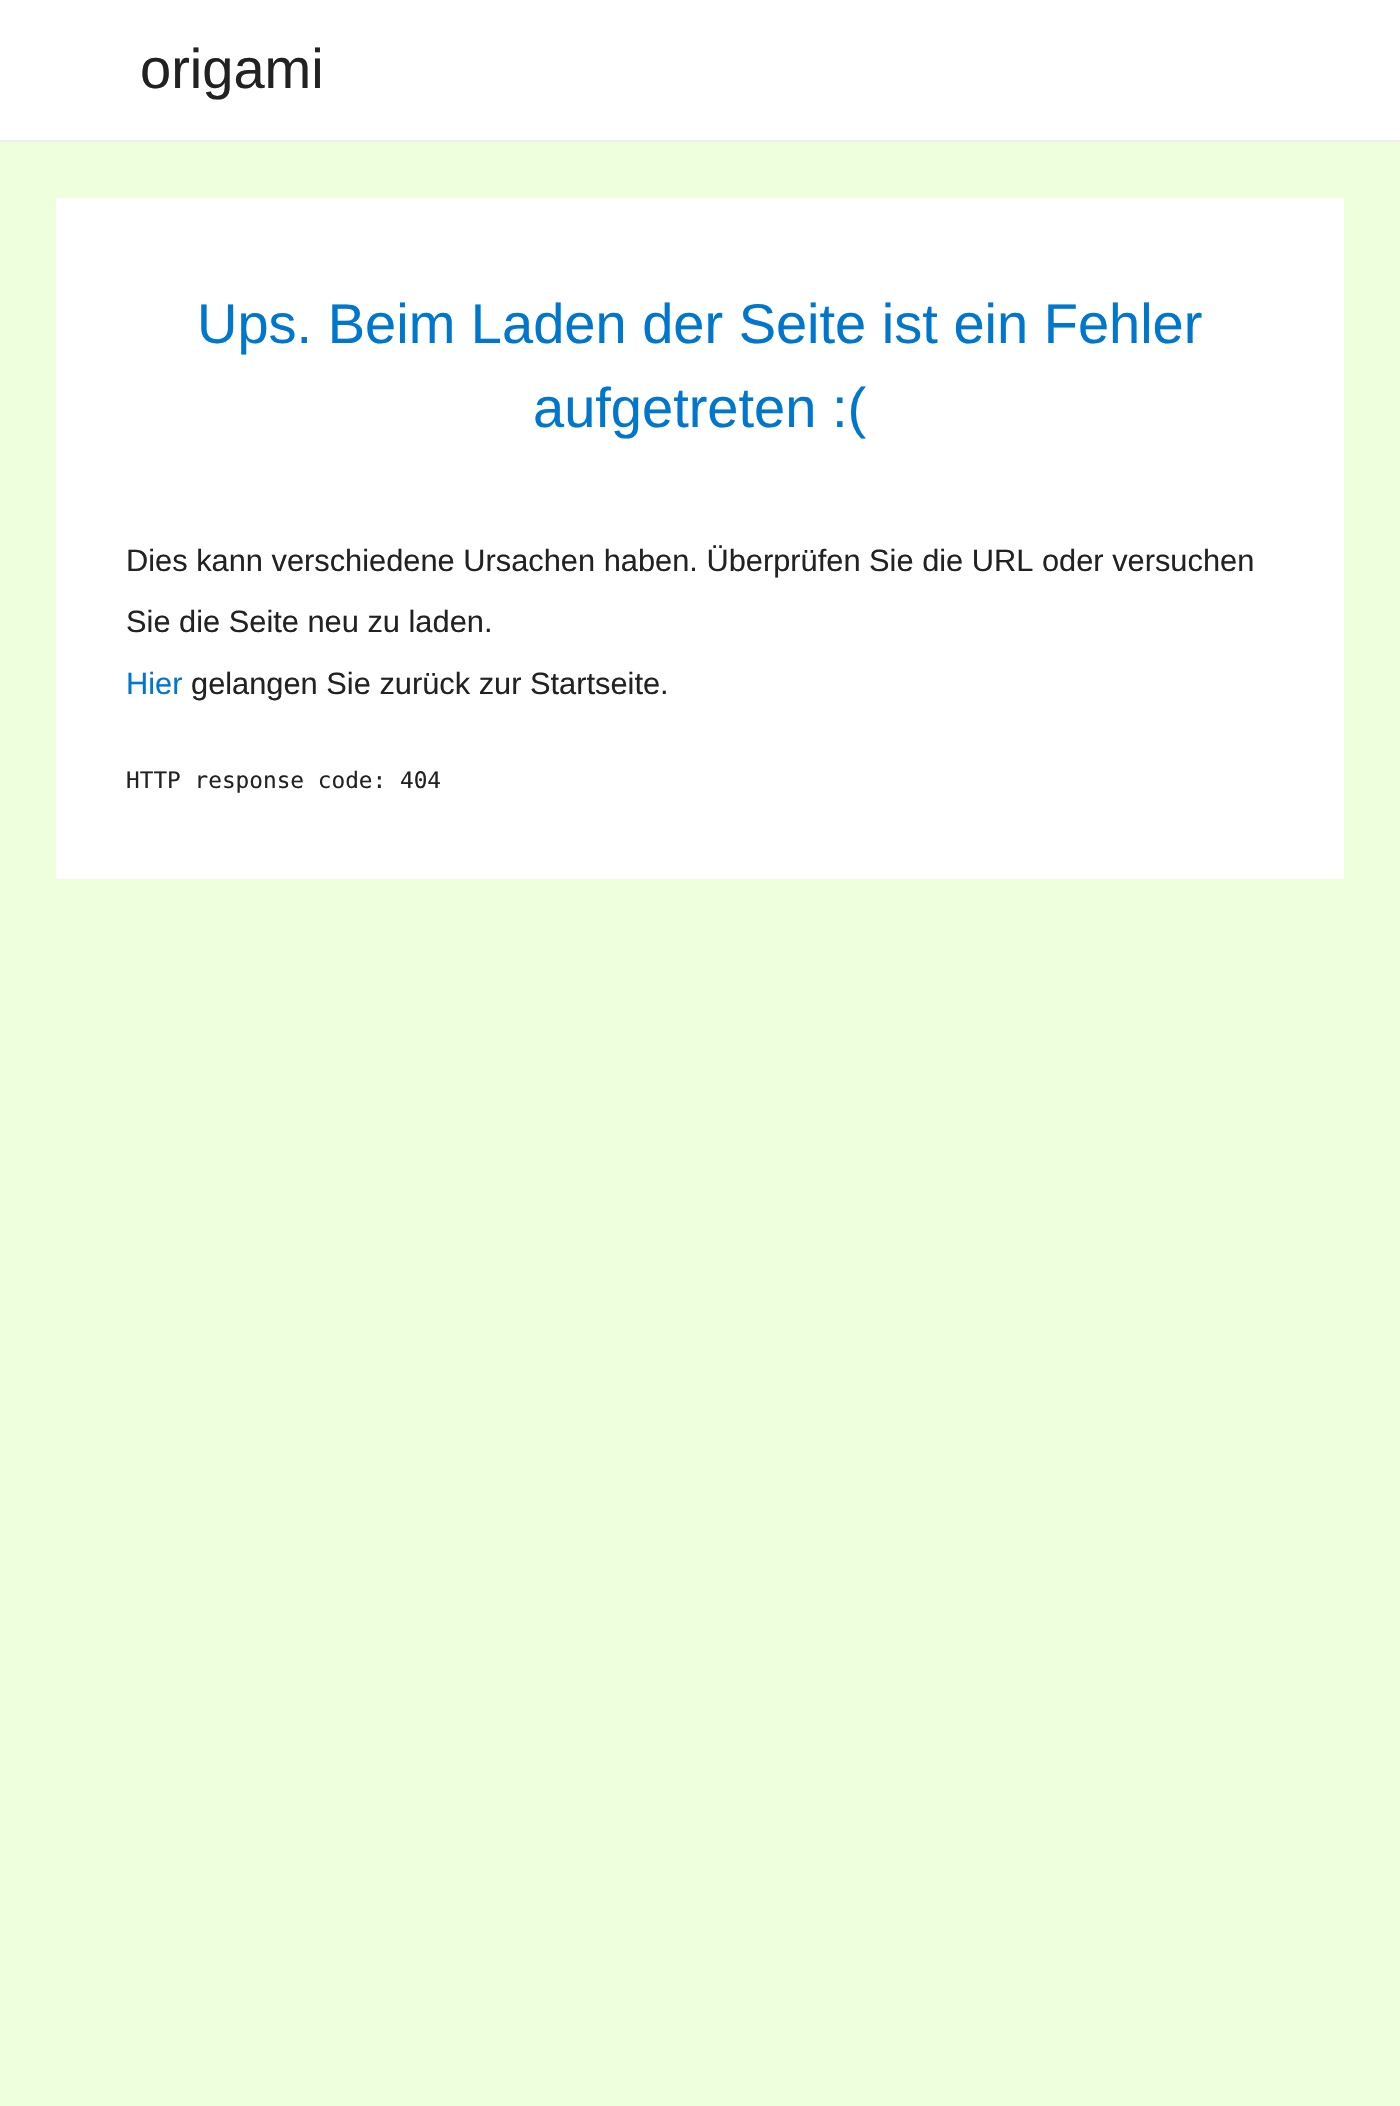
static SkFont makeFont(const char* family, int weight, float size, bool italic = false) {
  SkFontStyle style(weight, SkFontStyle::kNormal_Width,
    italic ? SkFontStyle::kItalic_Slant : SkFontStyle::kUpright_Slant);
  SkFont result(fontMgr->matchFamilyStyle(family, style), size);
  result.setSubpixel(true);
  return result;
}

static void text(SkCanvas* c, const char* s, float x, float y, const SkFont& font, SkColor color) {
  SkPaint ink(SkColor4f::FromColor(color));
  ink.setAntiAlias(true);
  c->drawString(s, x, y, font, ink);
}

static void box(SkCanvas* c, float l, float t, float r, float b, SkColor color) {
  SkPaint ink(SkColor4f::FromColor(color));
  ink.setAntiAlias(true);
  c->drawRect(SkRect::MakeLTRB(l, t, r, b), ink);
}

void draw(SkCanvas* c) {
  SkPaint paint;
  paint.setAntiAlias(true);
  c->clear(0xffeeffdd);
  box(c, 0, 0, 1400, 140, 0xffffffff);
  box(c, 0, 140, 1400, 142, 0xffeeeeee);
  SkFont face1 = makeFont("Liberation Sans", 400, 56);
  text(c, "origami", 140, 88, face1, 0xff222222);
  box(c, 56, 198, 1344, 879, 0xffffffff);
  text(c, "Ups. Beim Laden der Seite ist ein Fehler", 197, 343, face1, 0xff0077cc);
  text(c, "aufgetreten :(", 533, 427, face1, 0xff0077cc);
  SkFont face2 = makeFont("Liberation Sans", 400, 30.8f);
  text(c, "Dies kann verschiedene Ursachen haben. Überprüfen Sie die URL oder versuchen", 126, 571, face2, 0xff222222);
  text(c, "Sie die Seite neu zu laden.", 126, 632, face2, 0xff222222);
  text(c, "Hier", 126, 694, face2, 0xff0077cc);
  text(c, "gelangen Sie zurück zur Startseite.", 191, 694, face2, 0xff222222);
  SkFont face3 = makeFont("DejaVu Sans Mono", 400, 22.75f);
  text(c, "HTTP response code: 404", 126, 788, face3, 0xff222222);
}
